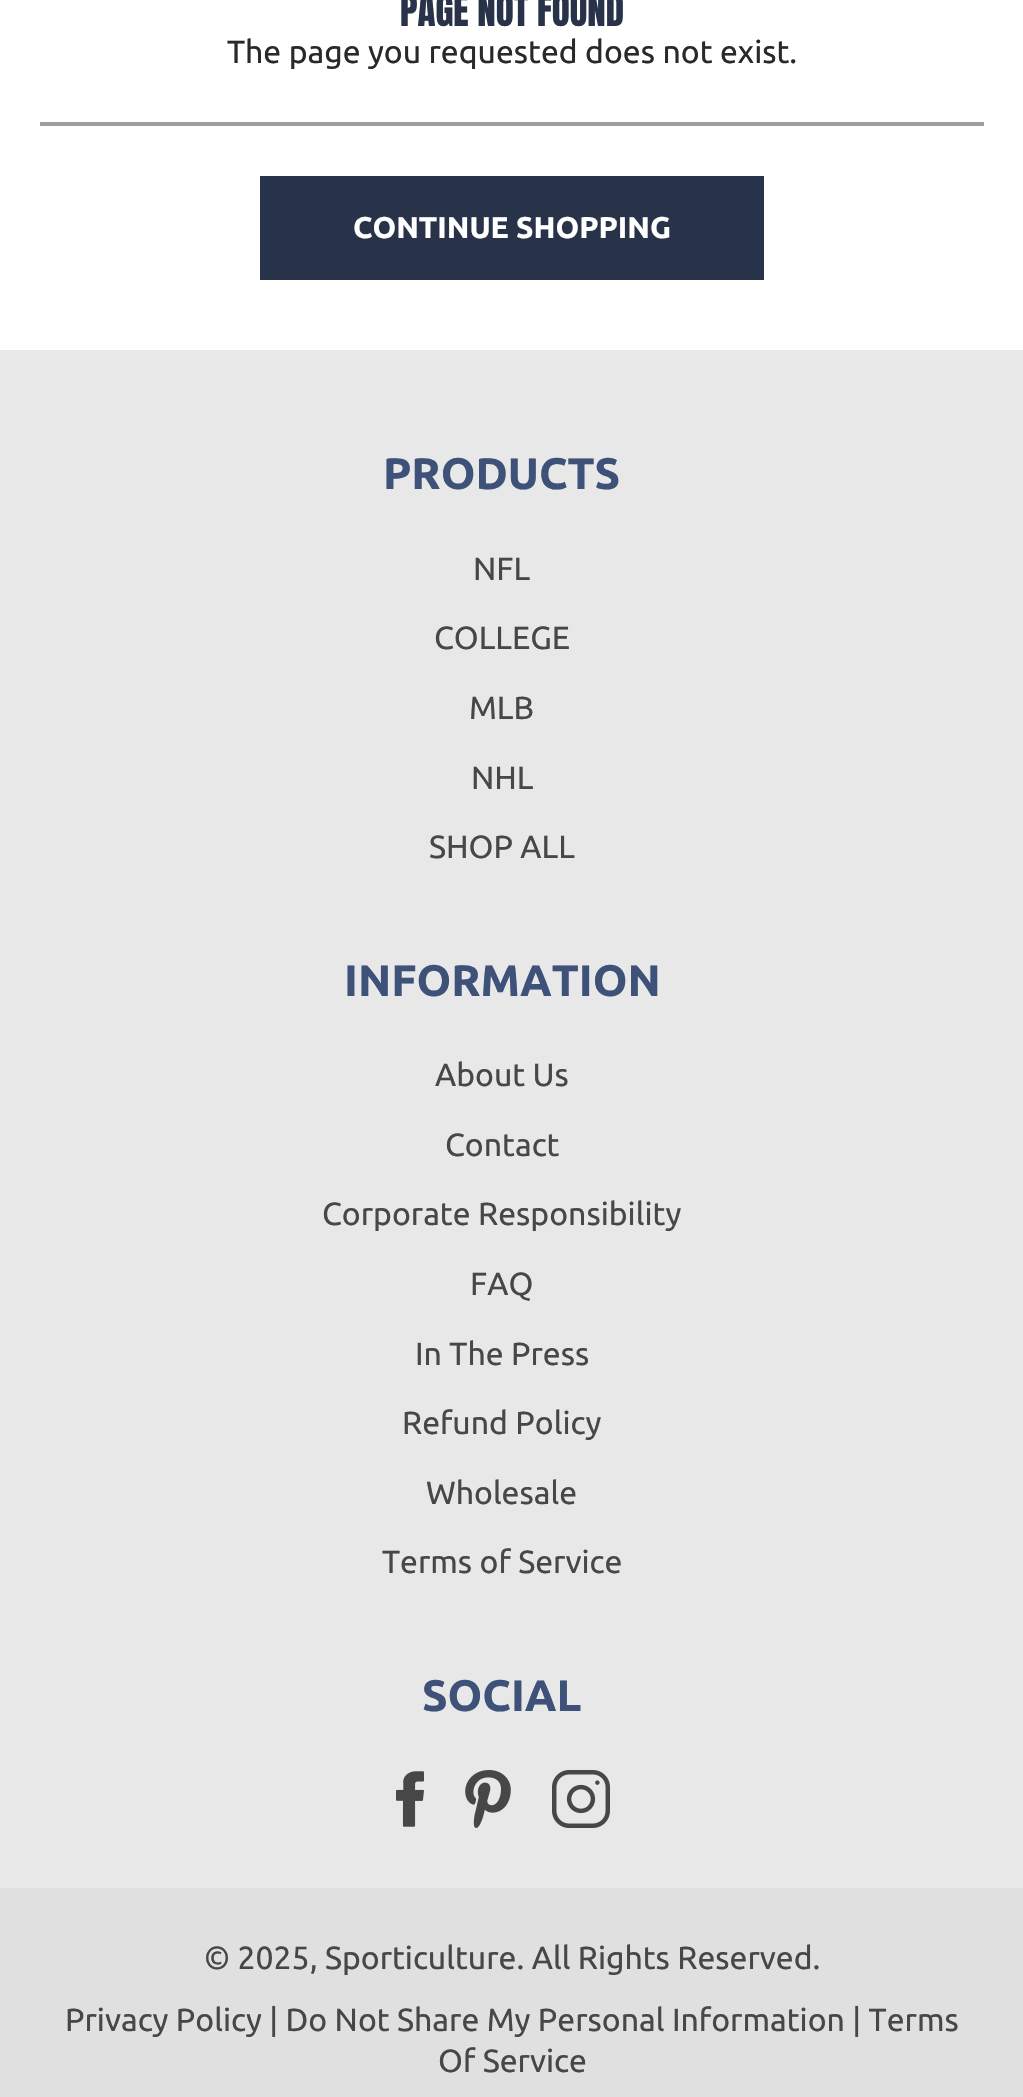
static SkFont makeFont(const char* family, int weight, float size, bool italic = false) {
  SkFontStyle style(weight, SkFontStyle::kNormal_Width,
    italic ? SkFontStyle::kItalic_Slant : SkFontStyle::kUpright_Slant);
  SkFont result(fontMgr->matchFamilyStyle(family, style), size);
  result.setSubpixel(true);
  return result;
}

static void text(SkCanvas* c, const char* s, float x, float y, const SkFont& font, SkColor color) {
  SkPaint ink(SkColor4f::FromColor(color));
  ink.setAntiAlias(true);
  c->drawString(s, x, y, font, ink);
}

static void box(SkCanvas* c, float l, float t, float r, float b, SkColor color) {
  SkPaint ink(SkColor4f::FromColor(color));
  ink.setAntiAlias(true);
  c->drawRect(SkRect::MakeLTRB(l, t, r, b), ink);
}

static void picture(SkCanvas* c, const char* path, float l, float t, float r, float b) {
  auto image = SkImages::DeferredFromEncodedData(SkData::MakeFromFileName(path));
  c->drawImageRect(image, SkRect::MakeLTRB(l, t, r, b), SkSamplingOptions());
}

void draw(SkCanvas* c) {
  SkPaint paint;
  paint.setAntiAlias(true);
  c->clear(0xffffffff);
  SkFont face1 = makeFont("Anton", 400, 37);
  text(c, "PAGE NOT FOUND", 400, 26, face1, 0xff28334a);
  SkFont face2 = makeFont("Ubuntu", 400, 32);
  text(c, "The page you requested does not exist.", 227, 63, face2, 0xff292929);
  box(c, 40, 122, 984, 126, 0xff9f9f9f);
  box(c, 260, 176, 764, 280, 0xff28334a);
  SkFont face3 = makeFont("Ubuntu", 700, 30);
  text(c, "CONTINUE SHOPPING", 353, 238, face3, 0xffffffff);
  box(c, 0, 350, 1023, 1888, 0xffe8e8e8);
  SkFont face4 = makeFont("Ubuntu", 700, 44);
  text(c, "PRODUCTS", 383, 489, face4, 0xff3e5178);
  text(c, "NFL", 473, 580, face2, 0xff474747);
  text(c, "COLLEGE", 434, 649, face2, 0xff474747);
  text(c, "MLB", 469, 719, face2, 0xff474747);
  text(c, "NHL", 471, 789, face2, 0xff474747);
  text(c, "SHOP ALL", 429, 858, face2, 0xff474747);
  text(c, "INFORMATION", 344, 996, face4, 0xff3e5178);
  text(c, "About Us", 435, 1086, face2, 0xff474747);
  text(c, "Contact", 445, 1156, face2, 0xff474747);
  text(c, "Corporate Responsibility", 322, 1225, face2, 0xff474747);
  text(c, "FAQ", 470, 1295, face2, 0xff474747);
  text(c, "In The Press", 415, 1365, face2, 0xff474747);
  text(c, "Refund Policy", 402, 1434, face2, 0xff474747);
  text(c, "Wholesale", 426, 1504, face2, 0xff474747);
  text(c, "Terms of Service", 382, 1573, face2, 0xff474747);
  text(c, "SOCIAL", 422, 1711, face4, 0xff3e5178);
  picture(c, "img_01.png", 396, 1771, 424, 1827);
  picture(c, "img_02.png", 465, 1770, 511, 1828);
  picture(c, "img_03.png", 552, 1770, 610, 1828);
  box(c, 0, 1888, 1023, 2097, 0xffe0e0e0);
  text(c, "© 2025, Sporticulture. All Rights Reserved.", 204, 1969, face2, 0xff474747);
  text(c, "Privacy Policy | Do Not Share My Personal Information | Terms", 65, 2031, face2, 0xff474747);
  text(c, "Of Service", 438, 2072, face2, 0xff474747);
}
